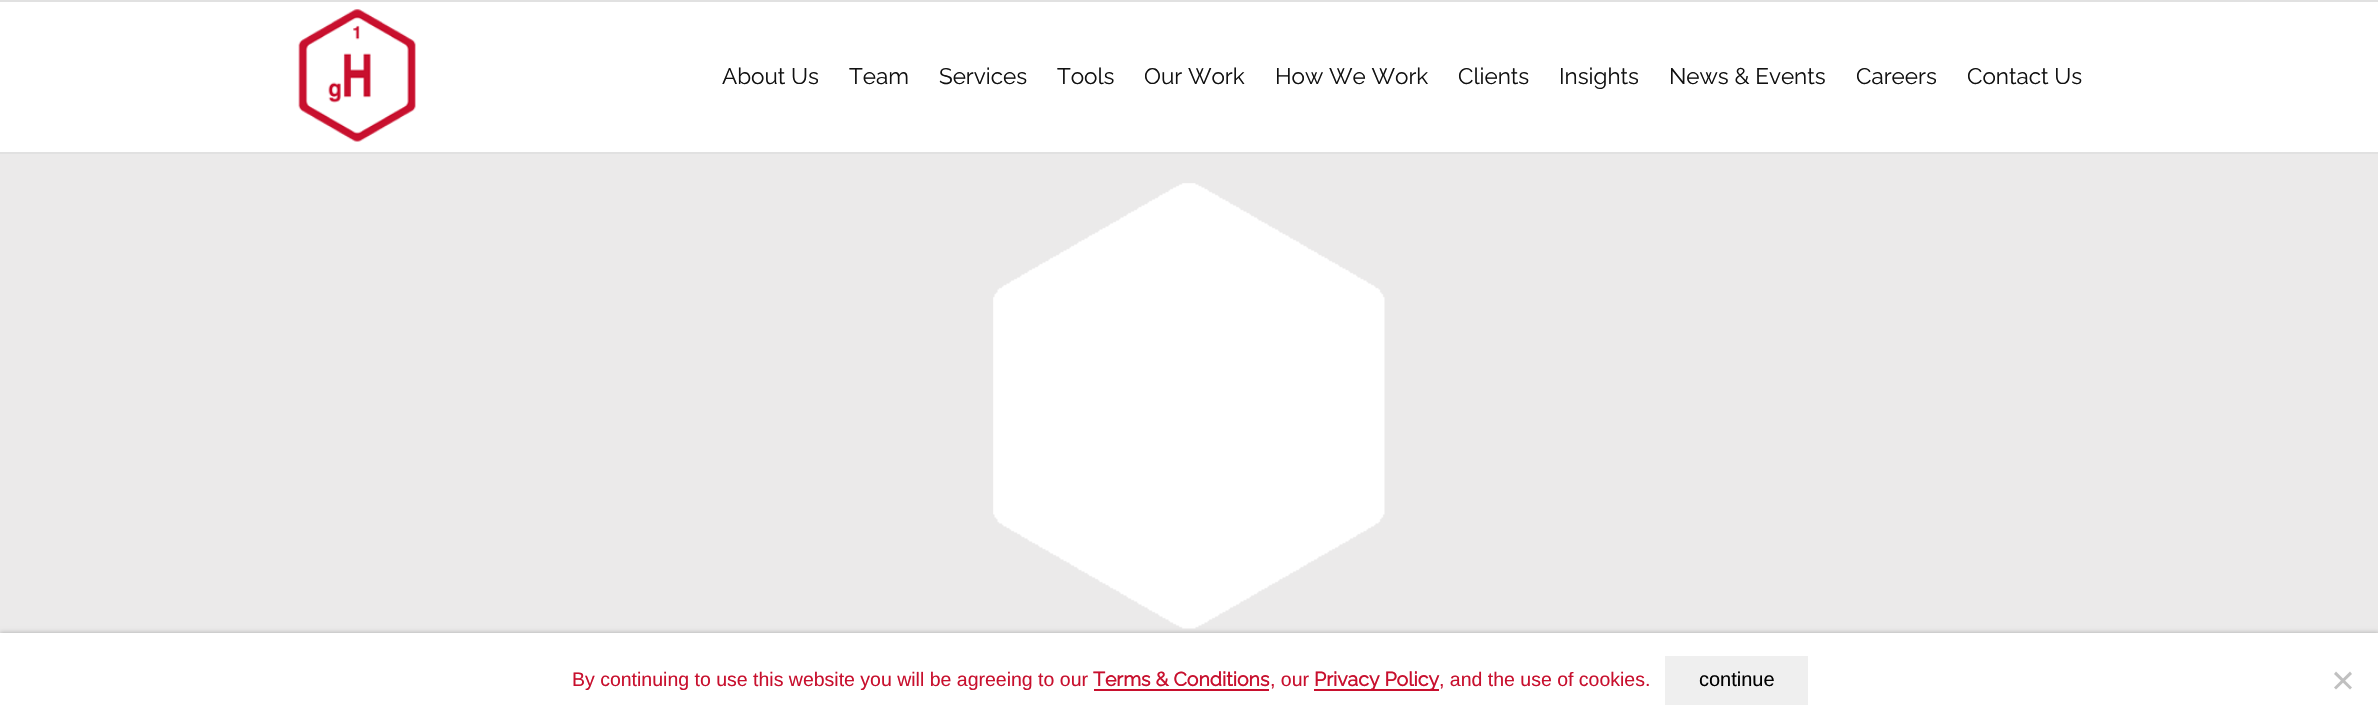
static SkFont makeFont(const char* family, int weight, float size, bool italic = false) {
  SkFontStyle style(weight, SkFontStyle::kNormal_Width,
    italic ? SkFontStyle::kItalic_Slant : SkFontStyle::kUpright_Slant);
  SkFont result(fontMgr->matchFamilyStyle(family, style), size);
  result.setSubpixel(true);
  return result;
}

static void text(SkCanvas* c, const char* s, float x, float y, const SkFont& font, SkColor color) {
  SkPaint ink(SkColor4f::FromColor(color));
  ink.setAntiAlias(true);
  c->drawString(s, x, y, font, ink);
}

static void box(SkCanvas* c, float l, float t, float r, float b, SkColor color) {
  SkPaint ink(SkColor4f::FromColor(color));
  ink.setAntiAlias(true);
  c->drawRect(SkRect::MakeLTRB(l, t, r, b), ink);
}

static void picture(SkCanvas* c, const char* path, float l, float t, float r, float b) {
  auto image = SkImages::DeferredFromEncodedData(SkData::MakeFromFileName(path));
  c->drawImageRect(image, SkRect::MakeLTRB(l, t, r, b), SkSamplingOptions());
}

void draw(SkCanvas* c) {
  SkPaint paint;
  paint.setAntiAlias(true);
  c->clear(0xffffffff);
  box(c, 0, 0, 2378, 2, 0xffe1e1e1);
  box(c, 0, 152, 2378, 154, 0xffe1e1e1);
  picture(c, "img_01.png", 298, 9, 416, 142);
  SkFont face1 = makeFont("Raleway", 100, 22.5f);
  text(c, "About Us", 722, 84, face1, 0xff111111);
  text(c, "Team", 849, 84, face1, 0xff111111);
  text(c, "Services", 939, 84, face1, 0xff111111);
  text(c, "Tools", 1057, 84, face1, 0xff111111);
  text(c, "Our Work", 1144, 84, face1, 0xff111111);
  text(c, "How We Work", 1275, 84, face1, 0xff111111);
  text(c, "Clients", 1458, 84, face1, 0xff111111);
  text(c, "Insights", 1559, 84, face1, 0xff111111);
  text(c, "News & Events", 1669, 84, face1, 0xff111111);
  text(c, "Careers", 1856, 84, face1, 0xff111111);
  text(c, "Contact Us", 1967, 84, face1, 0xff111111);
  box(c, 0, 154, 2378, 633, 0xffebeaea);
  picture(c, "img_02.png", 993, 183, 1385, 629);
  paint.setColor(0x33000000);
  paint.setMaskFilter(SkMaskFilter::MakeBlur(kNormal_SkBlurStyle, 2));
  c->drawRect(SkRect::MakeLTRB(0, 632, 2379, 726), paint);
  paint.setMaskFilter(nullptr);
  box(c, 0, 633, 2378, 727, 0xffffffff);
  SkFont face2 = makeFont("Liberation Sans", 400, 19.5f);
  text(c, "By continuing to use this website you will be agreeing to our", 572, 686, face2, 0xffc8102e);
  SkFont face3 = makeFont("Raleway", 700, 19.5f);
  text(c, "Terms & Conditions", 1093, 686, face3, 0xffc8102e);
  box(c, 1094, 689, 1269, 691, 0xffc8102e);
  text(c, ", our", 1270, 686, face2, 0xffc8102e);
  box(c, 1314, 689, 1439, 691, 0xffc8102e);
  text(c, "Privacy Policy", 1314, 686, face3, 0xffc8102e);
  text(c, ", and the use of cookies.", 1439, 686, face2, 0xffc8102e);
  box(c, 1665, 656, 1808, 705, 0xffefefef);
  SkFont face4 = makeFont("Liberation Sans", 400, 20);
  text(c, "continue", 1699, 686, face4, 0xff000000);
  paint.setColor(0xffc0c0c0);
  c->drawPath(SkPathBuilder().moveTo(2350, 671.5f).lineTo(2352, 674).lineTo(2336, 689.5f).lineTo(2334, 687.5f).close().detach(), paint);
  c->drawPath(SkPathBuilder().moveTo(2334, 674).lineTo(2336, 671.5f).lineTo(2352, 687.5f).lineTo(2350, 689.5f).close().detach(), paint);
}
